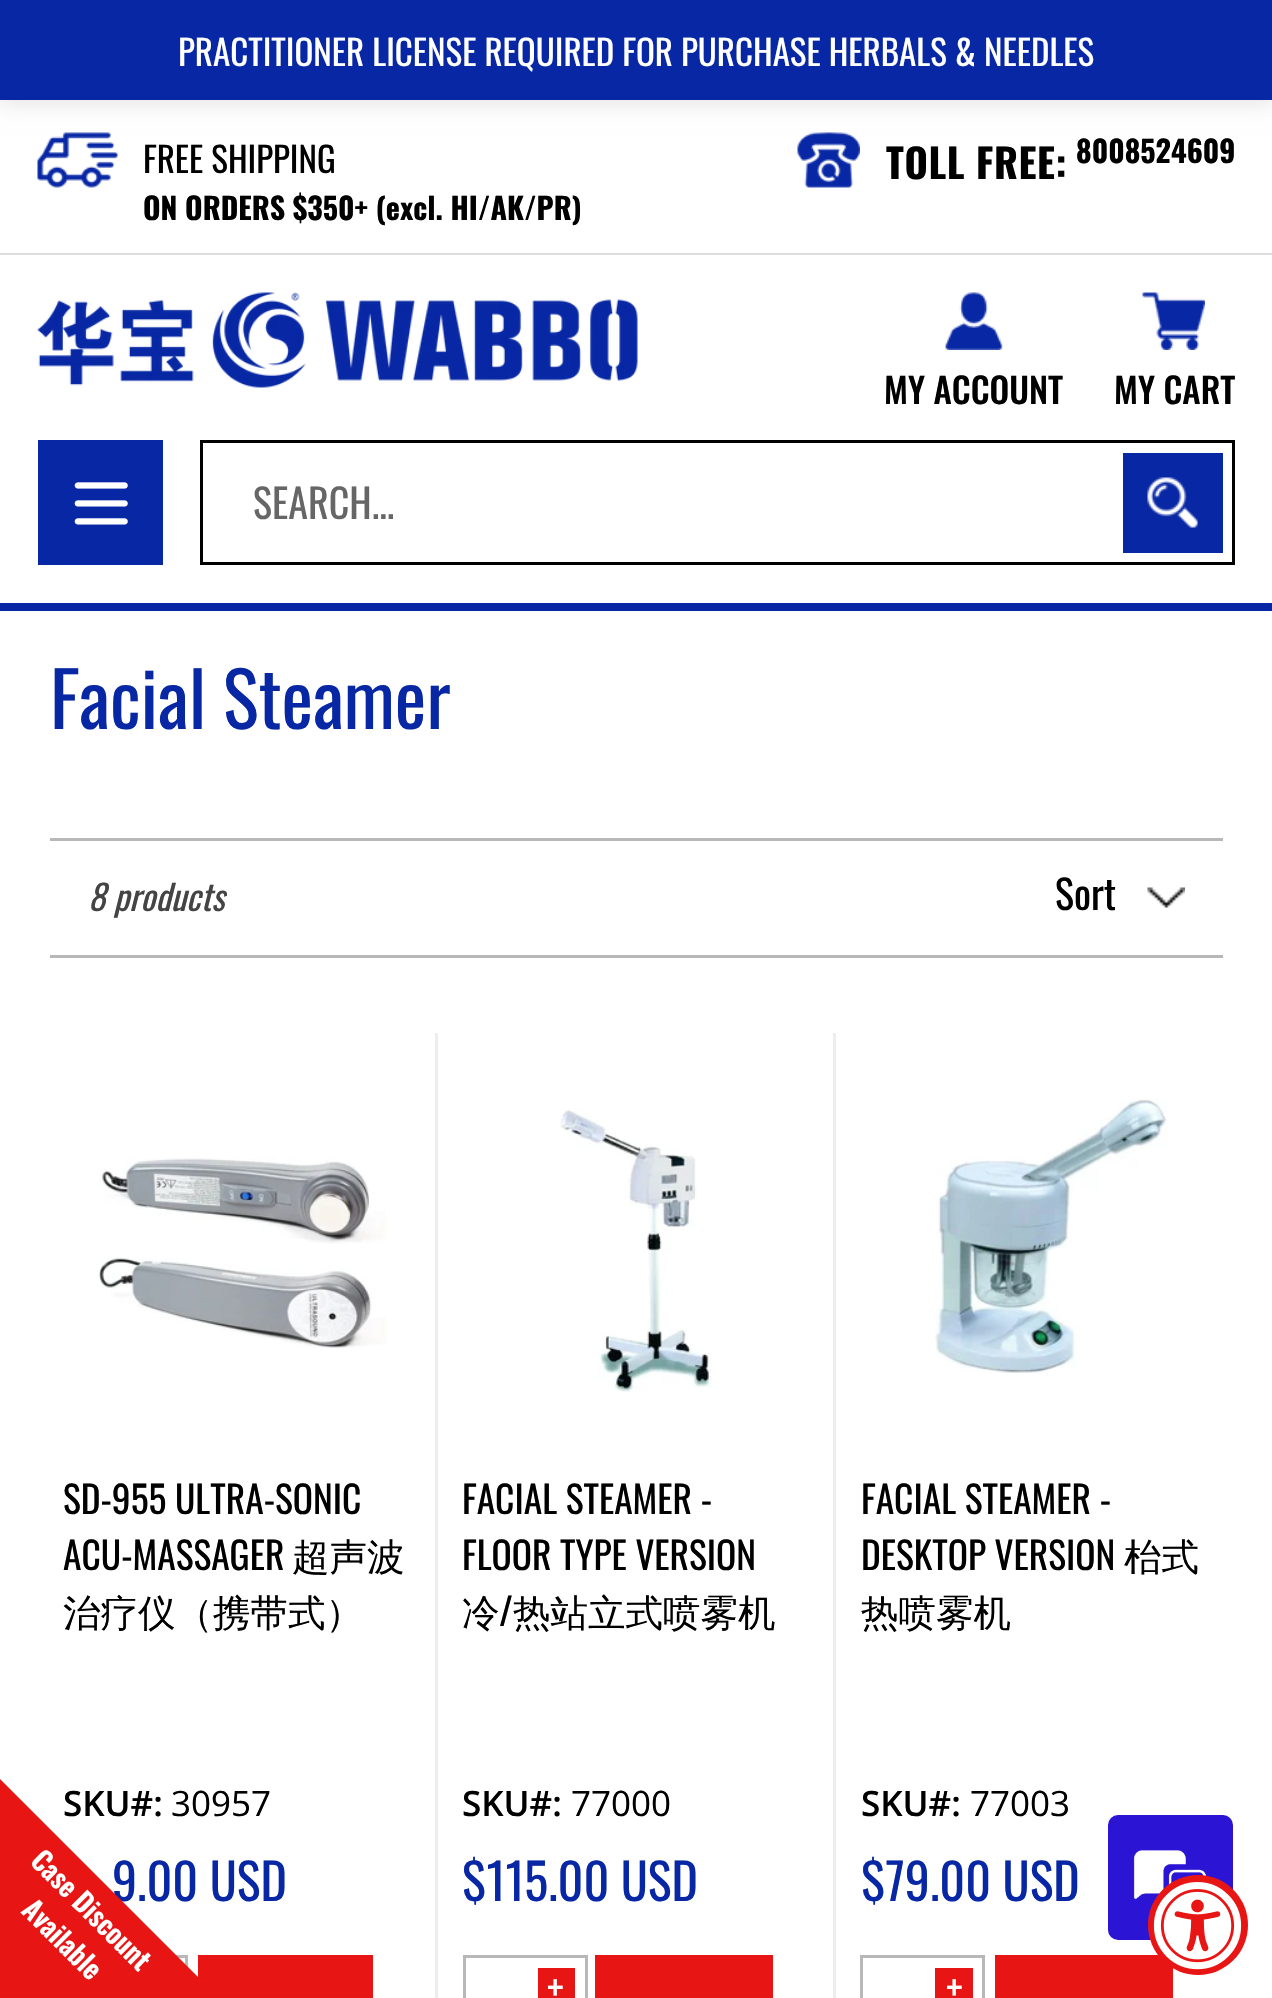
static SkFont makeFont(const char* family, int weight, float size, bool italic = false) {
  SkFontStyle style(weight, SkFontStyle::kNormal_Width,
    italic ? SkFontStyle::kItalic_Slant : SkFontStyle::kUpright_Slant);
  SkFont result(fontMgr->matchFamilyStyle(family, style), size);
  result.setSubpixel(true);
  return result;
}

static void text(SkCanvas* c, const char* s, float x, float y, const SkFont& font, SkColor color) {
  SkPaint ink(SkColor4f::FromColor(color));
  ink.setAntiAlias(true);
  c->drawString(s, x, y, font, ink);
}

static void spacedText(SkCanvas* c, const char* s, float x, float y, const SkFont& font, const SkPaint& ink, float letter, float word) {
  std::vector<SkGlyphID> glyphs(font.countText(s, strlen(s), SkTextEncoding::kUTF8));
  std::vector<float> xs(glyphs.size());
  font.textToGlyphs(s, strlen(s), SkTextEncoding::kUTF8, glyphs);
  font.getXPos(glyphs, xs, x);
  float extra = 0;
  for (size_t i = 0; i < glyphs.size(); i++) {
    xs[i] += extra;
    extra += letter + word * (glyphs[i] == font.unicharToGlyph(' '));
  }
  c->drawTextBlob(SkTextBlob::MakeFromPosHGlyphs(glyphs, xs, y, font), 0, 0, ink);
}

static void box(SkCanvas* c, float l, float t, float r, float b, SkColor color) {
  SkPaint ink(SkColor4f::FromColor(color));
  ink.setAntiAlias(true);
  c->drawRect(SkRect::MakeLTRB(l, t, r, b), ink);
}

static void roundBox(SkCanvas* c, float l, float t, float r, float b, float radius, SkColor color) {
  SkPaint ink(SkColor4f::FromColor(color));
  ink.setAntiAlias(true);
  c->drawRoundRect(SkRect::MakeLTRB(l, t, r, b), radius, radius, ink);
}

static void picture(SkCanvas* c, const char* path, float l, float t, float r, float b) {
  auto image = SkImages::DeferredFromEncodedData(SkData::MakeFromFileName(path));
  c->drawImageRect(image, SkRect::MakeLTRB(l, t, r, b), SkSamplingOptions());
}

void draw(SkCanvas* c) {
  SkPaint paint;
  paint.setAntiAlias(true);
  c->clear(0xffffffff);
  picture(c, "img_01.png", 37, 132, 118, 188);
  picture(c, "img_02.png", 797, 132, 860, 188);
  paint.setColor(0x1c000000);
  paint.setMaskFilter(SkMaskFilter::MakeBlur(kNormal_SkBlurStyle, 11));
  c->drawRect(SkRect::MakeLTRB(-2, -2, 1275, 103), paint);
  paint.setMaskFilter(nullptr);
  box(c, 0, 0, 1272, 100, 0xff0827a4);
  SkFont face1 = makeFont("Oswald", 400, 35);
  text(c, "PRACTITIONER LICENSE REQUIRED FOR PURCHASE HERBALS & NEEDLES", 178, 66, face1, 0xffffffff);
  box(c, 0, 603, 1272, 611, 0xff0827a4);
  box(c, 0, 253, 1272, 255, 0xffdddddd);
  text(c, "FREE SHIPPING", 143, 173, face1, 0xff000000);
  SkFont face2 = makeFont("Oswald", 700, 30);
  text(c, "ON ORDERS $350+ (excl. HI/AK/PR)", 143, 220, face2, 0xff000000);
  SkFont face3 = makeFont("Oswald", 700, 40);
  paint.setColor(0xff000000);
  spacedText(c, "TOLL FREE:", 886, 179, face3, paint, 0.6f, 0);
  text(c, "8008524609", 1076, 163, face2, 0xff000000);
  picture(c, "img_03.png", 37, 292, 638, 388);
  picture(c, "img_04.png", 945, 292, 1003, 350);
  SkFont face4 = makeFont("Oswald", 500, 35);
  text(c, "MY ACCOUNT", 884, 404, face4, 0xff000000);
  picture(c, "img_05.png", 1142, 292, 1205, 350);
  text(c, "MY CART", 1114, 404, face4, 0xff000000);
  box(c, 38, 440, 163, 565, 0xff0827a4);
  picture(c, "img_06.png", 74, 482, 128, 525);
  paint.setStyle(SkPaint::kStroke_Style);
  paint.setStrokeWidth(3);
  c->drawRect(SkRect::MakeLTRB(201.5f, 441.5f, 1233.5f, 563.5f), paint);
  SkFont face5 = makeFont("Oswald", 400, 40);
  text(c, "SEARCH...", 253, 519, face5, 0xff666666);
  box(c, 1123, 453, 1223, 553, 0xff0827a4);
  picture(c, "img_07.png", 1147, 477, 1198, 528);
  SkFont face6 = makeFont("Oswald", 400, 75);
  text(c, "Facial Steamer", 50, 729, face6, 0xff0827a4);
  box(c, 50, 838, 1223, 841, 0xffb8b8b8);
  box(c, 50, 955, 1223, 958, 0xffb8b8b8);
  SkFont face7 = makeFont("Oswald", 400, 35, true);
  text(c, "8 products", 88, 911, face7, 0xff444444);
  picture(c, "img_08.png", 1147, 887, 1185, 908);
  text(c, "Sort", 1055, 910, face5, 0xff000000);
  box(c, 435, 1033, 438, 1998, 0xffefece9);
  picture(c, "img_09.png", 98, 1158, 387, 1348);
  SkFont face8 = makeFont("Oswald", 400, 37.5f);
  text(c, "SD-955 ULTRA-SONIC", 63, 1514, face8, 0xff000000);
  text(c, "ACU-MASSAGER", 63, 1570, face8, 0xff000000);
  SkFont face9 = makeFont("WenQuanYi Zen Hei", 500, 37.5f);
  text(c, "超声波", 292, 1570, face9, 0xff000000);
  text(c, "治疗仪（携带式）", 63, 1626, face9, 0xff000000);
  SkFont face10 = makeFont("Open Sans", 600, 35);
  text(c, "SKU#:", 63, 1816, face10, 0xff000000);
  SkFont face11 = makeFont("Open Sans", 400, 35);
  text(c, "30957", 171, 1816, face11, 0xff000000);
  SkFont face12 = makeFont("Oswald", 400, 50);
  text(c, "9.00 USD", 112, 1901, face12, 0xff0827a4);
  paint.setColor(0xffb8b8b8);
  c->drawRect(SkRect::MakeLTRB(64.5f, 1956.5f, 186.5f, 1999.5f), paint);
  box(c, 198, 1955, 373, 1998, 0xffe81515);
  box(c, 833, 1033, 836, 1998, 0xffefece9);
  picture(c, "img_10.png", 560, 1109, 712, 1392);
  text(c, "FACIAL STEAMER -", 462, 1514, face8, 0xff000000);
  text(c, "FLOOR TYPE VERSION", 462, 1570, face8, 0xff000000);
  text(c, "冷", 462, 1626, face9, 0xff000000);
  text(c, "/", 499, 1626, face8, 0xff000000);
  text(c, "热站立式喷雾机", 513, 1626, face9, 0xff000000);
  text(c, "SKU#:", 462, 1816, face10, 0xff000000);
  text(c, "77000", 571, 1816, face11, 0xff000000);
  text(c, "$115.00 USD", 462, 1901, face12, 0xff0827a4);
  c->drawRect(SkRect::MakeLTRB(464.5f, 1956.5f, 586.5f, 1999.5f), paint);
  box(c, 538, 1968, 575, 1998, 0xffe81515);
  text(c, "+", 547, 2004, face5, 0xffffffff);
  box(c, 595, 1955, 773, 1998, 0xffe81515);
  picture(c, "img_11.png", 935, 1099, 1169, 1374);
  text(c, "FACIAL STEAMER -", 861, 1514, face8, 0xff000000);
  text(c, "DESKTOP VERSION", 861, 1570, face8, 0xff000000);
  text(c, "枱式", 1124, 1570, face9, 0xff000000);
  text(c, "热喷雾机", 861, 1626, face9, 0xff000000);
  text(c, "SKU#:", 861, 1816, face10, 0xff000000);
  text(c, "77003", 970, 1816, face11, 0xff000000);
  text(c, "$79.00 USD", 861, 1901, face12, 0xff0827a4);
  c->drawRect(SkRect::MakeLTRB(861.5f, 1956.5f, 983.5f, 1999.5f), paint);
  box(c, 935, 1968, 973, 1998, 0xffe81515);
  text(c, "+", 946, 2004, face5, 0xffffffff);
  box(c, 995, 1955, 1173, 1998, 0xffe81515);
  paint.setStyle(SkPaint::kFill_Style);
  paint.setColor(0xffe81515);
  c->drawPath(SkPathBuilder().moveTo(236, 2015).lineTo(-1, 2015).lineTo(-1, 1778).close().detach(), paint);
  SkFont face13 = makeFont("Oswald", 600, 27.5f);
  c->save();
  c->rotate(45, 29, 1863);
  text(c, "Case Discount", 29, 1863, face13, 0xffffffff);
  c->restore();
  c->save();
  c->rotate(45, 20, 1912);
  text(c, "Available", 20, 1912, face13, 0xffffffff);
  c->restore();
  roundBox(c, 1108, 1815, 1233, 1940, 10, 0xff2b14d4);
  picture(c, "img_12.png", 1133, 1850, 1207, 1899);
  c->drawCircle(1198, 1925, 50, paint);
  picture(c, "img_13.png", 1153, 1882, 1242, 1970);
}
